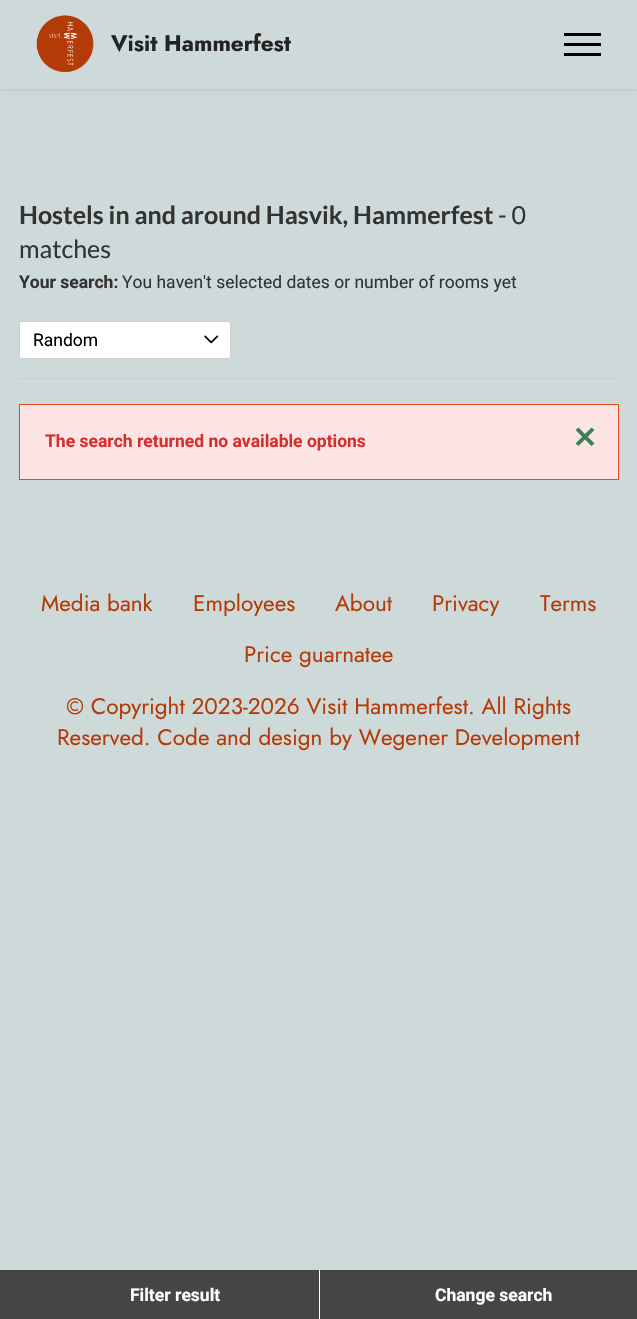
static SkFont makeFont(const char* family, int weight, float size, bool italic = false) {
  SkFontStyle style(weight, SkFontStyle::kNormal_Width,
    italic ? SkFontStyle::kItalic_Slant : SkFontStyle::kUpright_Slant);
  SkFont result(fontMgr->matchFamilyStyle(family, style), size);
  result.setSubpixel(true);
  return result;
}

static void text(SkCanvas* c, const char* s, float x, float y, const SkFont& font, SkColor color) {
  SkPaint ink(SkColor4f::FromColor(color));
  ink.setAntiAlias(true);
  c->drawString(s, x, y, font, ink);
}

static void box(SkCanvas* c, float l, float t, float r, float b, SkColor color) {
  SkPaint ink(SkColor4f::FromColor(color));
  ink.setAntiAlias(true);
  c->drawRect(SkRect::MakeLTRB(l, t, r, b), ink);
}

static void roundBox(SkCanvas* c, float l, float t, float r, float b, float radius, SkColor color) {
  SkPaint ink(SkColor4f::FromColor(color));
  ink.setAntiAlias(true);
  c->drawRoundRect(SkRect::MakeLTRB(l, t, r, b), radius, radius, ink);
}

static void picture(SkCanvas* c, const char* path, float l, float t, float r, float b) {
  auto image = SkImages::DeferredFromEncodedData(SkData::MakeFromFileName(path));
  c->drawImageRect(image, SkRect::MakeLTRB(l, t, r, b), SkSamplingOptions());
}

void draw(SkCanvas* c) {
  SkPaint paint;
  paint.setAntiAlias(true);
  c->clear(0xffced9d9);
  paint.setColor(0x1a000000);
  paint.setMaskFilter(SkMaskFilter::MakeBlur(kNormal_SkBlurStyle, 2));
  c->drawRect(SkRect::MakeLTRB(0, 1, 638, 90), paint);
  paint.setMaskFilter(nullptr);
  box(c, 0, 0, 637, 89, 0xffced9d9);
  picture(c, "img_01.png", 36, 15, 94, 73);
  SkFont face1 = makeFont("Jost", 700, 22.5f);
  text(c, "Visit Hammerfest", 111, 51, face1, 0xff232323);
  box(c, 564, 33, 601, 36, 0xff000000);
  box(c, 564, 43, 601, 46, 0xff000000);
  box(c, 564, 53, 601, 56, 0xff000000);
  SkFont face2 = makeFont("Lato", 700, 25);
  text(c, "Hostels in and around Hasvik, Hammerfest", 19, 224, face2, 0xff333333);
  SkFont face3 = makeFont("Lato", 400, 25);
  text(c, "- 0", 498, 224, face3, 0xff333333);
  text(c, "matches", 19, 258, face3, 0xff333333);
  SkFont face4 = makeFont("Roboto", 700, 17.5f);
  text(c, "Your search:", 19, 288, face4, 0xff333333);
  SkFont face5 = makeFont("Roboto", 400, 17.5f);
  text(c, "You haven't selected dates or number of rooms yet", 122, 288, face5, 0xff333333);
  box(c, 19, 378, 619, 379, 0xffcccccc);
  roundBox(c, 19, 321, 231, 359, 2.5f, 0xffffffff);
  picture(c, "img_02.png", 204, 335, 219, 344);
  paint.setStyle(SkPaint::kStroke_Style);
  paint.setStrokeWidth(1);
  paint.setColor(0xffcccccc);
  c->drawRoundRect(SkRect::MakeLTRB(19.5f, 321.5f, 230.5f, 358.5f), 2, 2, paint);
  text(c, "Random", 33, 346, face5, 0xff000000);
  paint.setStyle(SkPaint::kFill_Style);
  paint.setColor(0xfffde4e4);
  c->drawRect(SkRect::MakeLTRB(19.5f, 404.5f, 618.5f, 479.5f), paint);
  paint.setStyle(SkPaint::kStroke_Style);
  paint.setColor(0xffe64a19);
  c->drawRect(SkRect::MakeLTRB(19.5f, 404.5f, 618.5f, 479.5f), paint);
  text(c, "The search returned no available options", 45, 447, face4, 0xffd32f2f);
  paint.setStyle(SkPaint::kFill_Style);
  paint.setColor(0xff3c8254);
  c->drawPath(SkPathBuilder().moveTo(578.5f, 427.5f).lineTo(594.5f, 443.5f).lineTo(591.5f, 446).lineTo(575.5f, 430).close().detach(), paint);
  c->drawPath(SkPathBuilder().moveTo(575.5f, 443.5f).lineTo(591.5f, 427.5f).lineTo(594.5f, 430).lineTo(578.5f, 446).close().detach(), paint);
  box(c, 0, 1270, 319, 1319, 0xff454545);
  text(c, "Filter result", 130, 1301, face4, 0xffffffff);
  box(c, 320, 1270, 637, 1319, 0xff454545);
  box(c, 319, 1270, 320, 1319, 0xffffffff);
  text(c, "Change search", 435, 1301, face4, 0xffffffff);
  SkFont face6 = makeFont("Jost", 400, 22.5f);
  text(c, "Media bank", 41, 611, face6, 0xffb43b07);
  text(c, "Employees", 193, 611, face6, 0xffb43b07);
  text(c, "About", 335, 611, face6, 0xffb43b07);
  text(c, "Privacy", 432, 611, face6, 0xffb43b07);
  text(c, "Terms", 540, 611, face6, 0xffb43b07);
  text(c, "Price guarnatee", 244, 662, face6, 0xffb43b07);
  text(c, "© Copyright 2023-2026 Visit Hammerfest. All Rights", 66, 714, face6, 0xffb43b07);
  text(c, "Reserved. Code and design by Wegener Development", 57, 745, face6, 0xffb43b07);
}
